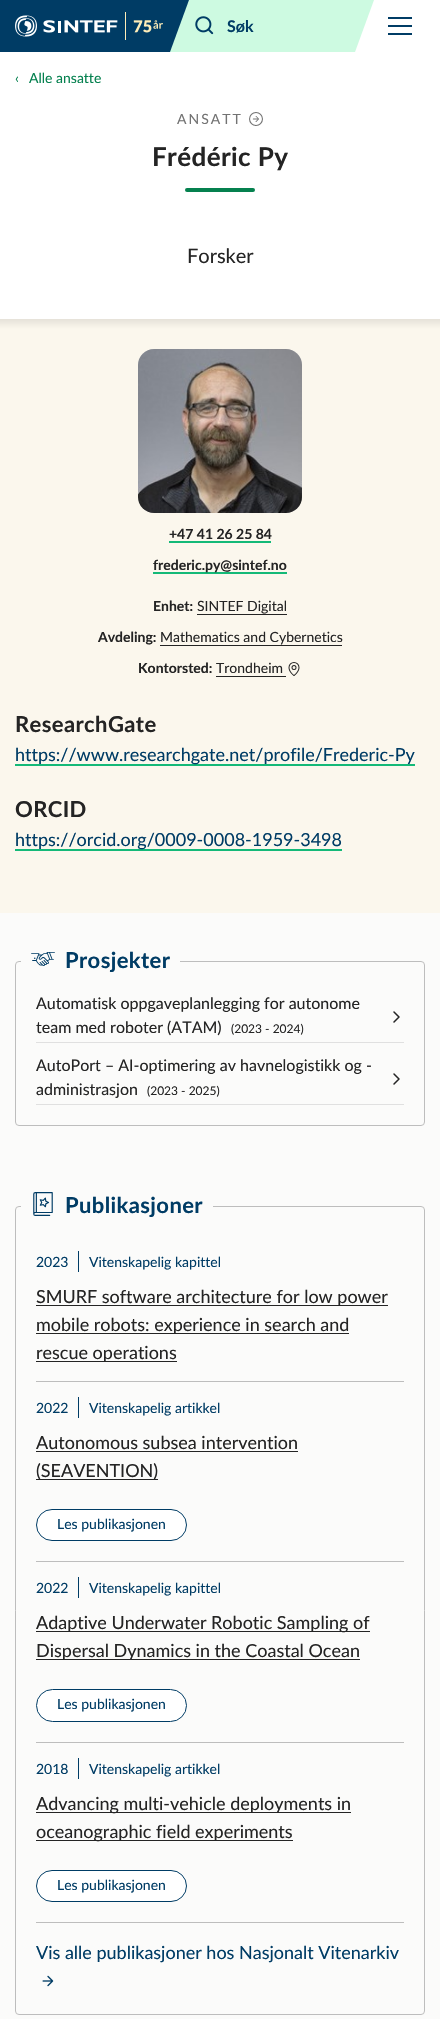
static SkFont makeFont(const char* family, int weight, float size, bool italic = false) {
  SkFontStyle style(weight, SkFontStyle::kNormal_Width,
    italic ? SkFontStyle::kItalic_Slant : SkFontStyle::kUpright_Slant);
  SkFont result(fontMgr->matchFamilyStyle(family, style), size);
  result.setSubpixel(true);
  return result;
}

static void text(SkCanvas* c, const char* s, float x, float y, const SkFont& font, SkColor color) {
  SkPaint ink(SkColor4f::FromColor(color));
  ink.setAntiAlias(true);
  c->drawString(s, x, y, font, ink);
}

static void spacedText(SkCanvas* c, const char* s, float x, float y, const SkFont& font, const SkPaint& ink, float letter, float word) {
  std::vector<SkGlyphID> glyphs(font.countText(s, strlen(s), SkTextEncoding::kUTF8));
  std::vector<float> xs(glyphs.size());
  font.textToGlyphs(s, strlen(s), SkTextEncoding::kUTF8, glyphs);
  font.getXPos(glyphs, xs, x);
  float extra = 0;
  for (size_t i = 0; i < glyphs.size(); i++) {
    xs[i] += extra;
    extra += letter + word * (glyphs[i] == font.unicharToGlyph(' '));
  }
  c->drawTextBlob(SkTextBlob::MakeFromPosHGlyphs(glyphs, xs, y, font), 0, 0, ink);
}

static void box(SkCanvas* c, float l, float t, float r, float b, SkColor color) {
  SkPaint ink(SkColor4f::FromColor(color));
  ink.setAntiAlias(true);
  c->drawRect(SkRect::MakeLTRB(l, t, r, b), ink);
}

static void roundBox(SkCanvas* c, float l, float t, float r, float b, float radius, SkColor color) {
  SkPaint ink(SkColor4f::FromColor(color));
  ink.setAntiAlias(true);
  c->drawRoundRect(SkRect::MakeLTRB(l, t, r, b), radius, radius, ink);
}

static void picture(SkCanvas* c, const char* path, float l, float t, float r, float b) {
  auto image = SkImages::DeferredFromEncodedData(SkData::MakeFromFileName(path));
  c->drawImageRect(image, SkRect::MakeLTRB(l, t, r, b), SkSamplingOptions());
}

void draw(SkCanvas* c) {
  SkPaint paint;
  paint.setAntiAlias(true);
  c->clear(0xffffffff);
  paint.setColor(0xffcdfae1);
  c->drawPath(SkPathBuilder().moveTo(182, 0).lineTo(374, 0).lineTo(355, 52).lineTo(163, 52).close().detach(), paint);
  paint.setColor(0xff003c65);
  c->drawPath(SkPathBuilder().moveTo(26, 0).lineTo(189, 0).lineTo(170, 52).lineTo(8, 52).close().detach(), paint);
  box(c, 0, 0, 26, 52, 0xff003c65);
  picture(c, "img_01.png", 15, 12, 163, 40);
  picture(c, "img_02.png", 195, 16, 214, 35);
  SkFont face1 = makeFont("Lato", 700, 16);
  text(c, "Søk", 227, 32, face1, 0xff003c65);
  box(c, 388, 17, 412, 19, 0xff003c65);
  box(c, 388, 25, 412, 27, 0xff003c65);
  box(c, 388, 33, 412, 35, 0xff003c65);
  SkFont face2 = makeFont("Lato", 400, 14);
  text(c, "‹", 15, 83, face2, 0xff05814f);
  text(c, "Alle ansatte", 29, 83, face2, 0xff05814f);
  paint.setColor(0xff737373);
  spacedText(c, "ANSATT", 177, 124, face2, paint, 2, 0);
  picture(c, "img_03.png", 249, 112, 263, 126);
  SkFont face3 = makeFont("Lato", 700, 26);
  paint.setColor(0xff242424);
  spacedText(c, "Frédéric Py", 152, 166, face3, paint, 0.4f, 0);
  roundBox(c, 185, 188, 255, 192, 2, 0xff05814f);
  SkFont face4 = makeFont("Lato", 400, 20);
  text(c, "Forsker", 187, 263, face4, 0xff242424);
  {
    const SkColor colors[] = {0xffe6e2d9, 0xfffbf7ed};
    const float stops[] = {0, 1};
    const SkPoint ends[] = {{220, 319}, {220, 329}};
    paint.setShader(SkGradientShader::MakeLinear(ends, colors, stops, 2, SkTileMode::kClamp));
    paint.setAlpha(255);
  }
  c->drawRect(SkRect::MakeLTRB(0, 319, 440, 329), paint);
  box(c, 0, 329, 440, 913, 0xfffbf7ed);
  roundBox(c, 138, 349, 302, 513, 16, 0xffebebe6);
  picture(c, "img_04.png", 138, 349, 302, 513);
  SkFont face5 = makeFont("Lato", 700, 14);
  text(c, "+47 41 26 25 84", 169, 539, face5, 0xff242424);
  box(c, 169, 541, 271, 543, 0xff14b978);
  box(c, 153, 572, 287, 574, 0xff14b978);
  text(c, "frederic.py@sintef.no", 153, 570, face5, 0xff242424);
  text(c, "Enhet:", 153, 611, face5, 0xff242424);
  text(c, "SINTEF Digital", 197, 611, face2, 0xff242424);
  box(c, 197, 614, 287, 615, 0xff242424);
  text(c, "Avdeling:", 98, 642, face5, 0xff242424);
  text(c, "Mathematics and Cybernetics", 160, 642, face2, 0xff242424);
  box(c, 160, 645, 342, 646, 0xff242424);
  text(c, "Kontorsted:", 138, 673, face5, 0xff242424);
  text(c, "Trondheim", 216, 673, face2, 0xff242424);
  box(c, 216, 676, 286, 677, 0xff242424);
  picture(c, "img_05.png", 288, 662, 300, 676);
  SkFont face6 = makeFont("Lato", 700, 22);
  paint.setShader(nullptr);
  paint.setColor(0xff242424);
  spacedText(c, "ResearchGate", 15, 732, face6, paint, 0.4f, 0);
  box(c, 15, 764, 415, 766, 0xff14b978);
  SkFont face7 = makeFont("Lato", 400, 18);
  text(c, "https://www.researchgate.net/profile/Frederic-Py", 15, 761, face7, 0xff003c65);
  spacedText(c, "ORCID", 15, 817, face6, paint, 0.4f, 0);
  box(c, 15, 849, 342, 851, 0xff14b978);
  text(c, "https://orcid.org/0009-0008-1959-3498", 15, 846, face7, 0xff003c65);
  box(c, 0, 913, 440, 2019, 0xfffbfbfa);
  paint.setStyle(SkPaint::kStroke_Style);
  paint.setStrokeWidth(1);
  paint.setColor(0xffbdbdbd);
  c->drawRoundRect(SkRect::MakeLTRB(15.5f, 961.5f, 424.5f, 1125.5f), 3.5f, 3.5f, paint);
  box(c, 21, 961, 180, 962, 0xfffbfbfa);
  picture(c, "img_06.png", 31, 952, 55, 966);
  paint.setStyle(SkPaint::kFill_Style);
  paint.setColor(0xff003c65);
  spacedText(c, "Prosjekter", 65, 968, face6, paint, 0.4f, 0);
  box(c, 36, 1042, 404, 1043, 0xffe0e0e0);
  SkFont face8 = makeFont("Lato", 400, 16);
  text(c, "Automatisk oppgaveplanlegging for autonome", 36, 1009, face8, 0xff242424);
  text(c, "team med roboter (ATAM)", 36, 1033, face8, 0xff242424);
  SkFont face9 = makeFont("Lato", 400, 12);
  text(c, "(2023 - 2024)", 231, 1033, face9, 0xff242424);
  picture(c, "img_07.png", 393, 1011, 400, 1023);
  box(c, 36, 1104, 404, 1105, 0xffe0e0e0);
  text(c, "AutoPort – AI-optimering av havnelogistikk og -", 36, 1071, face8, 0xff242424);
  text(c, "administrasjon", 36, 1095, face8, 0xff242424);
  text(c, "(2023 - 2025)", 147, 1095, face9, 0xff242424);
  picture(c, "img_08.png", 393, 1073, 400, 1085);
  paint.setStyle(SkPaint::kStroke_Style);
  paint.setColor(0xffbdbdbd);
  c->drawRoundRect(SkRect::MakeLTRB(15.5f, 1206.5f, 424.5f, 2014.5f), 3.5f, 3.5f, paint);
  box(c, 21, 1206, 213, 1207, 0xfffbfbfa);
  picture(c, "img_09.png", 33, 1192, 53, 1216);
  paint.setStyle(SkPaint::kFill_Style);
  paint.setColor(0xff003c65);
  spacedText(c, "Publikasjoner", 65, 1213, face6, paint, 0.4f, 0);
  box(c, 36, 1381, 404, 1382, 0xffbdbdbd);
  box(c, 78, 1251, 79, 1272, 0xff003c65);
  text(c, "2023", 36, 1267, face2, 0xff003c65);
  text(c, "Vitenskapelig kapittel", 89, 1267, face2, 0xff003c65);
  box(c, 36, 1305, 388, 1306, 0xff242424);
  text(c, "SMURF software architecture for low power", 36, 1303, face7, 0xff242424);
  box(c, 36, 1333, 349, 1334, 0xff242424);
  text(c, "mobile robots: experience in search and", 36, 1331, face7, 0xff242424);
  box(c, 36, 1361, 177, 1362, 0xff242424);
  text(c, "rescue operations", 36, 1359, face7, 0xff242424);
  box(c, 36, 1561, 404, 1562, 0xffbdbdbd);
  box(c, 78, 1397, 79, 1418, 0xff003c65);
  text(c, "2022", 36, 1413, face2, 0xff003c65);
  text(c, "Vitenskapelig artikkel", 89, 1413, face2, 0xff003c65);
  text(c, "Autonomous subsea intervention", 36, 1449, face7, 0xff242424);
  box(c, 36, 1451, 298, 1452, 0xff242424);
  box(c, 36, 1479, 158, 1480, 0xff242424);
  text(c, "(SEAVENTION)", 36, 1477, face7, 0xff242424);
  paint.setColor(0xffffffff);
  c->drawRoundRect(SkRect::MakeLTRB(36.5f, 1509.5f, 186.5f, 1540.5f), 15.5f, 15.5f, paint);
  paint.setStyle(SkPaint::kStroke_Style);
  paint.setColor(0xff003c65);
  c->drawRoundRect(SkRect::MakeLTRB(36.5f, 1509.5f, 186.5f, 1540.5f), 15.5f, 15.5f, paint);
  text(c, "Les publikasjonen", 57, 1529, face2, 0xff003c65);
  box(c, 36, 1742, 404, 1743, 0xffbdbdbd);
  box(c, 78, 1577, 79, 1598, 0xff003c65);
  text(c, "2022", 36, 1593, face2, 0xff003c65);
  text(c, "Vitenskapelig kapittel", 89, 1593, face2, 0xff003c65);
  box(c, 36, 1631, 370, 1632, 0xff242424);
  text(c, "Adaptive Underwater Robotic Sampling of", 36, 1629, face7, 0xff242424);
  box(c, 36, 1659, 360, 1660, 0xff242424);
  text(c, "Dispersal Dynamics in the Coastal Ocean", 36, 1657, face7, 0xff242424);
  paint.setStyle(SkPaint::kFill_Style);
  paint.setColor(0xffffffff);
  c->drawRoundRect(SkRect::MakeLTRB(36.5f, 1689.5f, 186.5f, 1721.5f), 16, 16, paint);
  paint.setStyle(SkPaint::kStroke_Style);
  paint.setColor(0xff003c65);
  c->drawRoundRect(SkRect::MakeLTRB(36.5f, 1689.5f, 186.5f, 1721.5f), 16, 16, paint);
  text(c, "Les publikasjonen", 57, 1709, face2, 0xff003c65);
  box(c, 36, 1922, 404, 1923, 0xffbdbdbd);
  box(c, 78, 1758, 79, 1779, 0xff003c65);
  text(c, "2018", 36, 1774, face2, 0xff003c65);
  text(c, "Vitenskapelig artikkel", 89, 1774, face2, 0xff003c65);
  box(c, 36, 1812, 351, 1813, 0xff242424);
  text(c, "Advancing multi-vehicle deployments in", 36, 1810, face7, 0xff242424);
  box(c, 36, 1840, 293, 1841, 0xff242424);
  text(c, "oceanographic field experiments", 36, 1838, face7, 0xff242424);
  paint.setStyle(SkPaint::kFill_Style);
  paint.setColor(0xffffffff);
  c->drawRoundRect(SkRect::MakeLTRB(36.5f, 1870.5f, 186.5f, 1901.5f), 15.5f, 15.5f, paint);
  paint.setStyle(SkPaint::kStroke_Style);
  paint.setColor(0xff003c65);
  c->drawRoundRect(SkRect::MakeLTRB(36.5f, 1870.5f, 186.5f, 1901.5f), 15.5f, 15.5f, paint);
  text(c, "Les publikasjonen", 57, 1890, face2, 0xff003c65);
  text(c, "Vis alle publikasjoner hos Nasjonalt Vitenarkiv", 36, 1959, face7, 0xff003c65);
  picture(c, "img_10.png", 42, 1975, 54, 1987);
}
